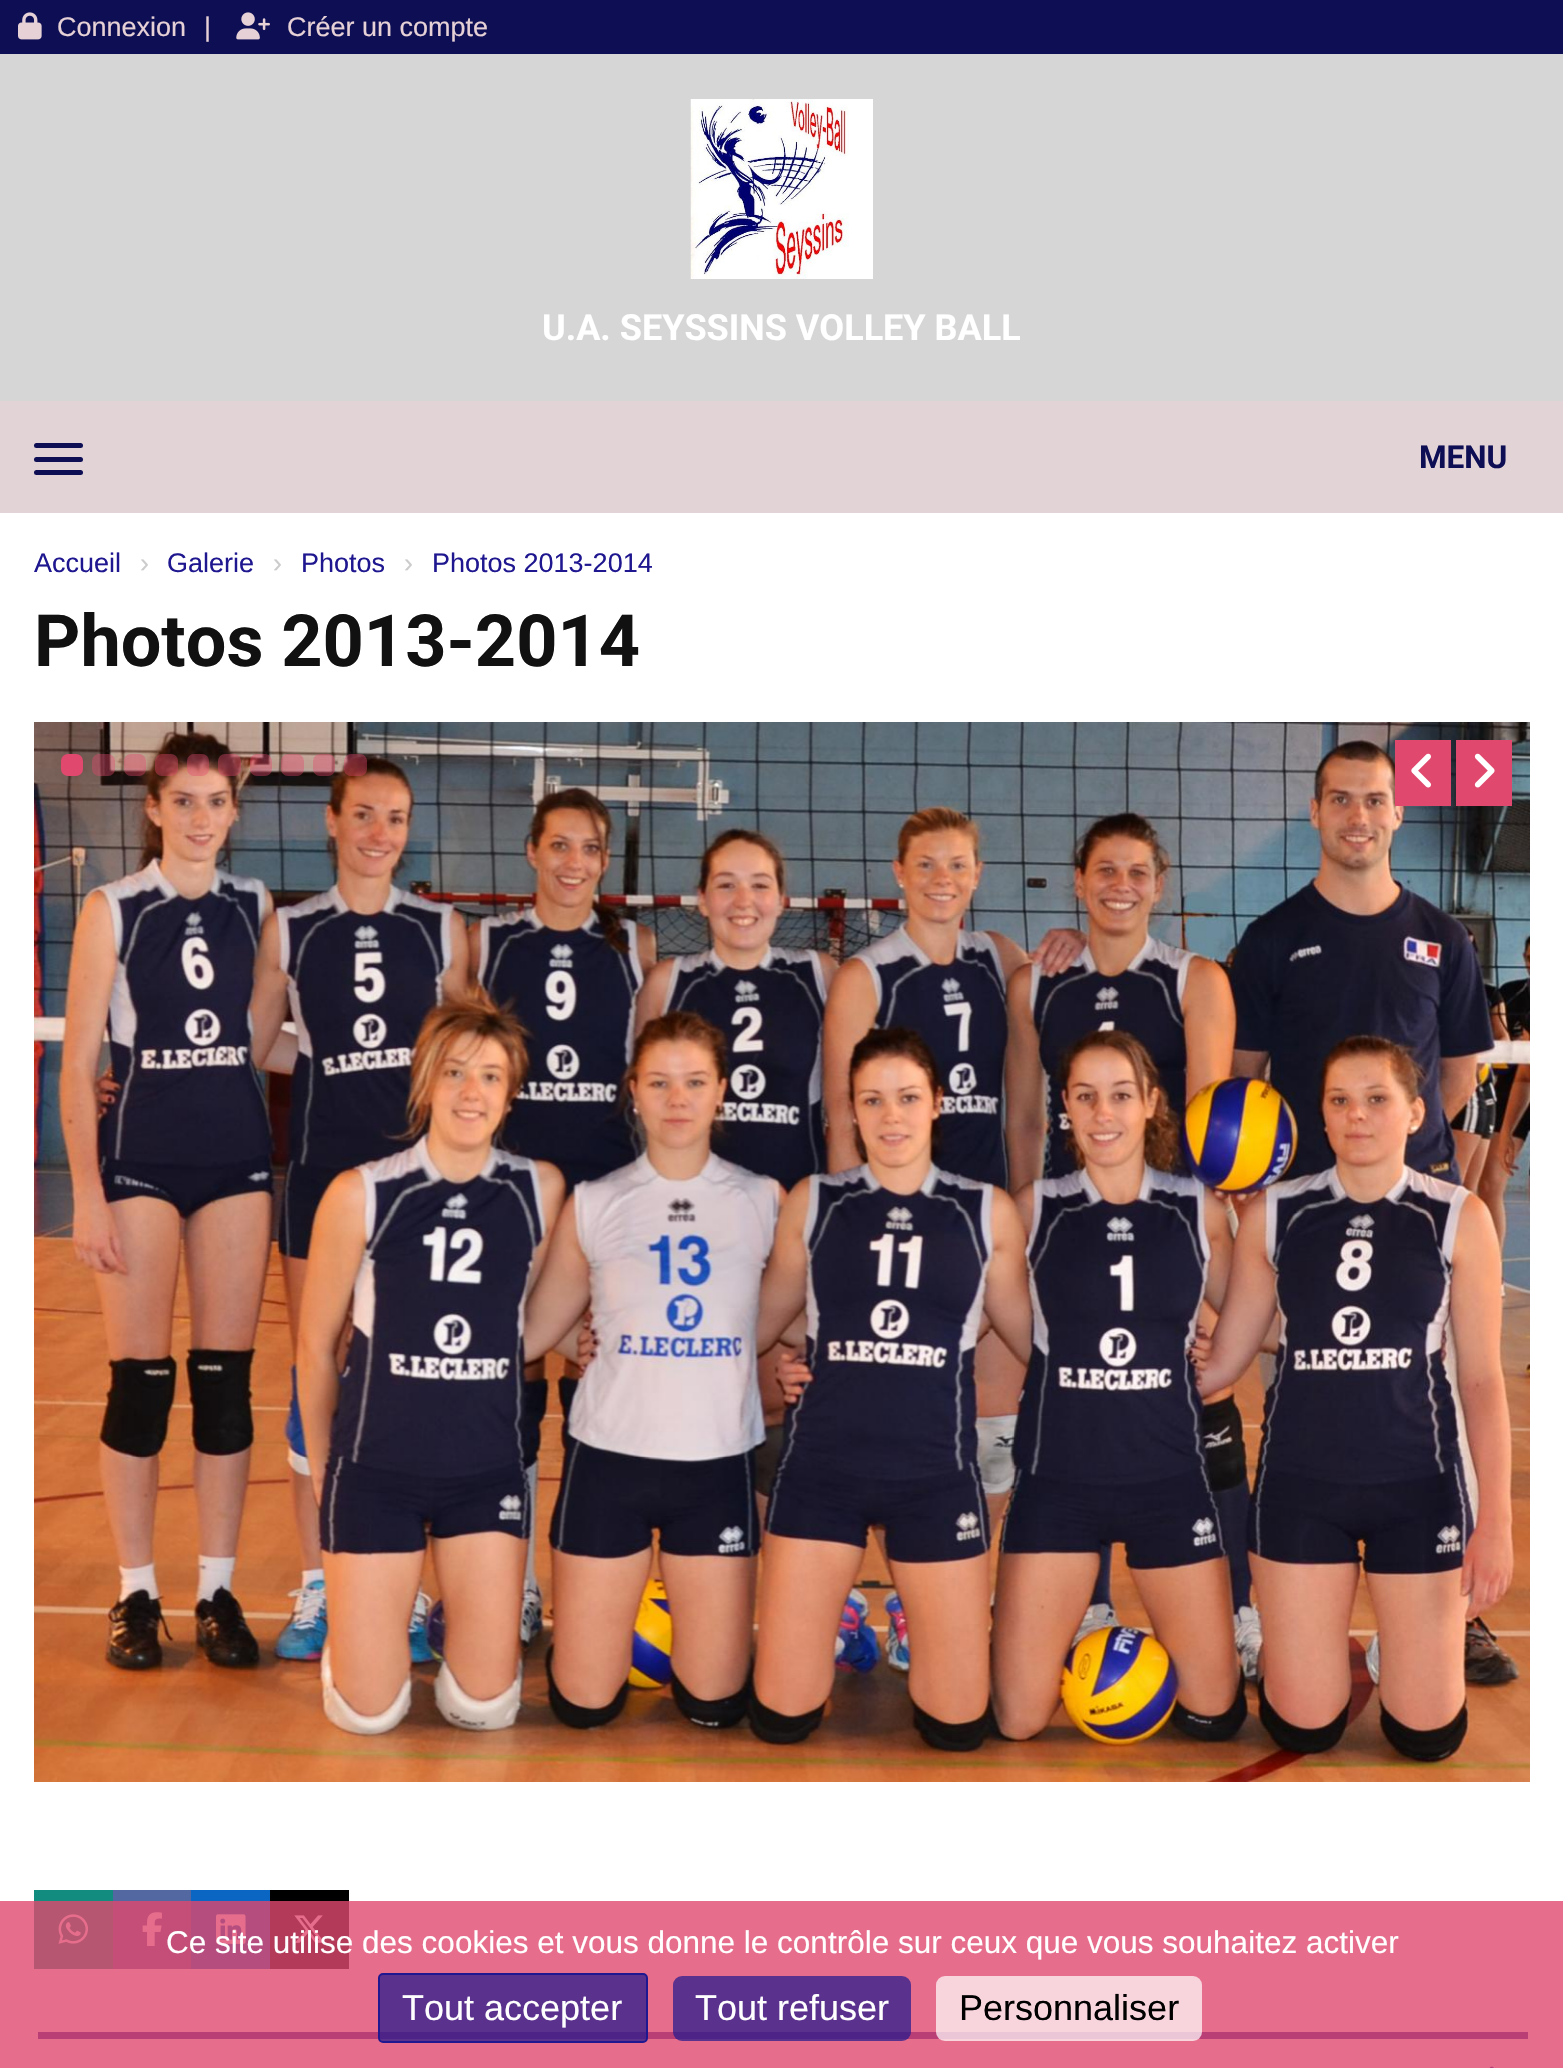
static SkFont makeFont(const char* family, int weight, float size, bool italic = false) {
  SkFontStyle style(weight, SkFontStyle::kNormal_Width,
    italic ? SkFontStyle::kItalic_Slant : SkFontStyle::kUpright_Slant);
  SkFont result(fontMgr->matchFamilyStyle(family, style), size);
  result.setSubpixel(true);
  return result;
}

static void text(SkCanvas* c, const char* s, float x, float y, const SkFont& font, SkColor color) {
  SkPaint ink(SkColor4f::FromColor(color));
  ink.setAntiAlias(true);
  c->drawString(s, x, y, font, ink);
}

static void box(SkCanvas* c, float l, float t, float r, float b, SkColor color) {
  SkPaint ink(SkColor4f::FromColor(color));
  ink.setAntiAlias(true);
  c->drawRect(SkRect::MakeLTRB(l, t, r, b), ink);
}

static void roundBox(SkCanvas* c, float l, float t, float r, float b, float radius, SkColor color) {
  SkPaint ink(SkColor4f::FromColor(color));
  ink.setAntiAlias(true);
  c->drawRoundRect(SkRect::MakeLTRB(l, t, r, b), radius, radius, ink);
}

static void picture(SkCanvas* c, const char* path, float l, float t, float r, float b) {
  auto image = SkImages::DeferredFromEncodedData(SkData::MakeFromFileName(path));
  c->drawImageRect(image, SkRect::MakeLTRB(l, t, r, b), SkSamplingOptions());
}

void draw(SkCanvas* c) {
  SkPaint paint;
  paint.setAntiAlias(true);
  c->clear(0xffd6d6d6);
  box(c, 0, 0, 1563, 54, 0xff0e0e54);
  picture(c, "img_01.png", 18, 12, 42, 40);
  SkFont face1 = makeFont("Liberation Sans", 400, 27);
  text(c, "Connexion", 57, 36, face1, 0xffe6d1d6);
  text(c, "|", 204, 36, face1, 0xffe6d1d6);
  picture(c, "img_02.png", 236, 12, 270, 40);
  text(c, "Créer un compte", 287, 36, face1, 0xffe6d1d6);
  picture(c, "img_03.png", 690, 99, 873, 279);
  SkFont face2 = makeFont("Roboto", 700, 36);
  text(c, "U.A. SEYSSINS VOLLEY BALL", 542, 340, face2, 0xffffffff);
  box(c, 0, 401, 1563, 513, 0xffe1d3d6);
  roundBox(c, 34, 443, 83, 448, 2.5f, 0xff0e0e54);
  roundBox(c, 34, 457, 83, 462, 2.5f, 0xff0e0e54);
  roundBox(c, 34, 470, 83, 475, 2.5f, 0xff0e0e54);
  SkFont face3 = makeFont("Roboto", 700, 31.5f);
  text(c, "MENU", 1419, 468, face3, 0xff0e0e54);
  box(c, 0, 513, 1563, 1901, 0xffffffff);
  box(c, 0, 1901, 1563, 2068, 0xffe66d8b);
  text(c, "Accueil", 34, 572, face1, 0xff1f178f);
  text(c, "›", 140, 572, face1, 0xffcccccc);
  text(c, "Galerie", 167, 572, face1, 0xff1f178f);
  text(c, "›", 273, 572, face1, 0xffcccccc);
  text(c, "Photos", 301, 572, face1, 0xff1f178f);
  text(c, "›", 404, 572, face1, 0xffcccccc);
  text(c, "Photos 2013-2014", 432, 572, face1, 0xff1f178f);
  SkFont face4 = makeFont("Roboto", 700, 72);
  text(c, "Photos 2013-2014", 34, 666, face4, 0xff111111);
  picture(c, "img_04.png", 34, 722, 1530, 1782);
  roundBox(c, 61, 754, 83, 776, 7, 0xffe0486e);
  roundBox(c, 92, 754, 115, 776, 7, 0x66e0486e);
  roundBox(c, 124, 754, 146, 776, 7, 0x66e0486e);
  roundBox(c, 155, 754, 178, 776, 7, 0x66e0486e);
  roundBox(c, 187, 754, 209, 776, 7, 0x66e0486e);
  roundBox(c, 218, 754, 241, 776, 7, 0x66e0486e);
  roundBox(c, 250, 754, 272, 776, 7, 0x66e0486e);
  roundBox(c, 281, 754, 304, 776, 7, 0x66e0486e);
  roundBox(c, 313, 754, 335, 776, 7, 0x66e0486e);
  roundBox(c, 344, 754, 367, 776, 7, 0x66e0486e);
  box(c, 1395, 740, 1451, 806, 0xffe0486e);
  picture(c, "img_05.png", 1411, 753, 1431, 788);
  box(c, 1456, 740, 1512, 806, 0xffe0486e);
  picture(c, "img_06.png", 1474, 753, 1495, 788);
  box(c, 34, 1890, 113, 1901, 0xff128c7e);
  box(c, 34, 1901, 113, 1969, 0xffb75671);
  picture(c, "img_07.png", 58, 1914, 88, 1944);
  box(c, 113, 1890, 191, 1901, 0xff5367a0);
  box(c, 113, 1901, 191, 1969, 0xffc44e78);
  picture(c, "img_08.png", 142, 1912, 162, 1946);
  box(c, 191, 1890, 270, 1901, 0xff0a66c2);
  box(c, 191, 1901, 270, 1969, 0xffb54e7f);
  picture(c, "img_09.png", 216, 1914, 246, 1944);
  box(c, 270, 1890, 349, 1901, 0xff000000);
  box(c, 270, 1901, 349, 1969, 0xffb33a58);
  picture(c, "img_10.png", 294, 1915, 325, 1943);
  box(c, 38, 2032, 1528, 2039, 0xffb93e75);
  picture(c, "img_11.png", 1489, 2066, 1494, 2068);
  SkFont face5 = makeFont("Liberation Sans", 400, 31.5f);
  text(c, "Ce site utilise des cookies et vous donne le contrôle sur ceux que vous souhaitez activer", 166, 1953, face5, 0xffffffff);
  paint.setColor(0xb31f178f);
  c->drawRoundRect(SkRect::MakeLTRB(379, 1974, 647, 2042), 4, 4, paint);
  paint.setStyle(SkPaint::kStroke_Style);
  paint.setStrokeWidth(2);
  paint.setColor(0xff1f178f);
  c->drawRoundRect(SkRect::MakeLTRB(379, 1974, 647, 2042), 4, 4, paint);
  SkFont face6 = makeFont("Liberation Sans", 400, 36);
  text(c, "Tout accepter", 402, 2020, face6, 0xffffffff);
  roundBox(c, 673, 1976, 911, 2041, 9, 0xb31f178f);
  text(c, "Tout refuser", 695, 2020, face6, 0xffffffff);
  roundBox(c, 936, 1976, 1202, 2041, 9, 0xb3ffffff);
  text(c, "Personnaliser", 959, 2020, face6, 0xff000000);
}
